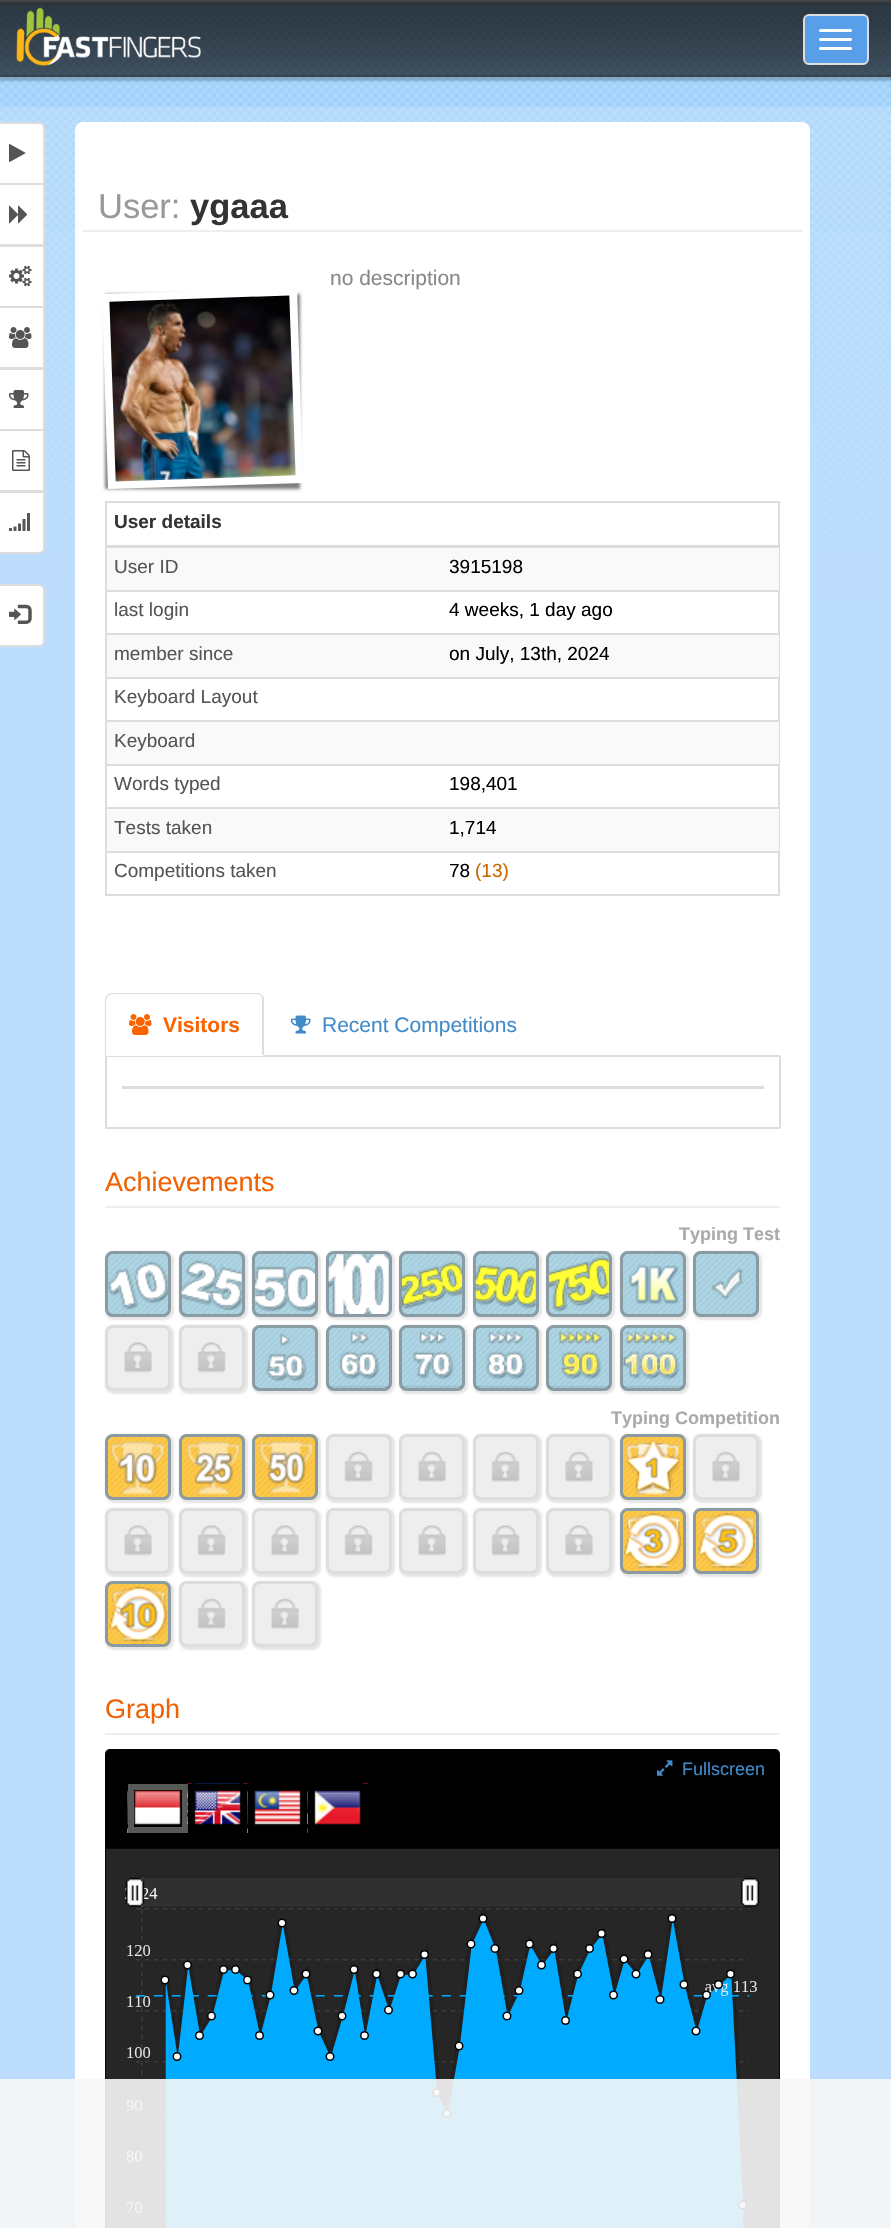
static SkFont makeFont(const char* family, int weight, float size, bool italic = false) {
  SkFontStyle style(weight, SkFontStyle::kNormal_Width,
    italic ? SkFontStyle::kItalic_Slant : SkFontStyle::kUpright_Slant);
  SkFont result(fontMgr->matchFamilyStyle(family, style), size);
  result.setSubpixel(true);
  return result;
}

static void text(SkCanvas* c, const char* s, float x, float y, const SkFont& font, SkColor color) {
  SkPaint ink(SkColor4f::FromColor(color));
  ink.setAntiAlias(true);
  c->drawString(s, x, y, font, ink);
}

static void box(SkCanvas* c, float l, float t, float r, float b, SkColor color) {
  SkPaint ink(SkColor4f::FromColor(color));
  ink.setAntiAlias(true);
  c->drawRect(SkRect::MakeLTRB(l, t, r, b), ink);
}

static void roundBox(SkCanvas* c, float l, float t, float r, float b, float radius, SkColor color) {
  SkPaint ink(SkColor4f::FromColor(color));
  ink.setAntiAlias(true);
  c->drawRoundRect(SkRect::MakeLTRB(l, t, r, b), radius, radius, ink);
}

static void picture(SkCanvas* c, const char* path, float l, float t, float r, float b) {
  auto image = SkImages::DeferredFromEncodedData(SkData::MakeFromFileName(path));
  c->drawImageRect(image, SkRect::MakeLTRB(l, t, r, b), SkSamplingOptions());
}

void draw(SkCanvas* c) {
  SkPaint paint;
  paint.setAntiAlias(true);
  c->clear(0xffadd5ff);
  picture(c, "img_01.png", 0, 77, 891, 909);
  paint.setColor(0x33000000);
  paint.setMaskFilter(SkMaskFilter::MakeBlur(kNormal_SkBlurStyle, 1));
  c->drawRect(SkRect::MakeLTRB(-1, 2, 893, 81), paint);
  paint.setMaskFilter(nullptr);
  box(c, 0, 2, 891, 77, 0xff2e353d);
  picture(c, "img_02.png", 0, 5, 891, 77);
  box(c, 0, 0, 891, 2, 0xff444444);
  picture(c, "img_03.png", 16, 7, 201, 66);
  paint.setColor(0xff589ee9);
  c->drawRoundRect(SkRect::MakeLTRB(804, 15, 868, 64), 5, 5, paint);
  paint.setStyle(SkPaint::kStroke_Style);
  paint.setStrokeWidth(2);
  paint.setColor(0xffdddddd);
  c->drawRoundRect(SkRect::MakeLTRB(804, 15, 868, 64), 5, 5, paint);
  roundBox(c, 819, 29, 852, 32, 1.5f, 0xffffffff);
  roundBox(c, 819, 38, 852, 41, 1.5f, 0xffffffff);
  roundBox(c, 819, 47, 852, 50, 1.5f, 0xffffffff);
  picture(c, "img_04.png", 0, 106, 891, 2228);
  paint.setStyle(SkPaint::kFill_Style);
  paint.setColor(0xffffffff);
  c->drawPath(SkPathBuilder().moveTo(-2, 123).lineTo(39, 123).cubicTo(42, 123, 44, 125, 44, 128).lineTo(44, 184).lineTo(-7, 184).lineTo(-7, 128).cubicTo(-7, 125, -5, 123, -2, 123).close().detach(), paint);
  paint.setStyle(SkPaint::kStroke_Style);
  paint.setColor(0xffdddddd);
  c->drawPath(SkPathBuilder().moveTo(-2, 123).lineTo(39, 123).cubicTo(42, 123, 44, 125, 44, 128).lineTo(44, 184).lineTo(-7, 184).lineTo(-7, 128).cubicTo(-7, 125, -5, 123, -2, 123).close().detach(), paint);
  picture(c, "img_05.png", 9, 144, 26, 162);
  paint.setStyle(SkPaint::kFill_Style);
  paint.setColor(0xffffffff);
  c->drawRect(SkRect::MakeLTRB(-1, 184, 44, 245), paint);
  paint.setStyle(SkPaint::kStroke_Style);
  paint.setColor(0xffdddddd);
  c->drawRect(SkRect::MakeLTRB(-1, 184, 44, 245), paint);
  picture(c, "img_06.png", 9, 205, 27, 224);
  paint.setStyle(SkPaint::kFill_Style);
  paint.setColor(0xffffffff);
  c->drawRect(SkRect::MakeLTRB(-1, 246, 44, 307), paint);
  paint.setStyle(SkPaint::kStroke_Style);
  paint.setColor(0xffdddddd);
  c->drawRect(SkRect::MakeLTRB(-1, 246, 44, 307), paint);
  picture(c, "img_07.png", 9, 265, 32, 287);
  paint.setStyle(SkPaint::kFill_Style);
  paint.setColor(0xffffffff);
  c->drawRect(SkRect::MakeLTRB(-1, 307, 44, 368), paint);
  paint.setStyle(SkPaint::kStroke_Style);
  paint.setColor(0xffdddddd);
  c->drawRect(SkRect::MakeLTRB(-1, 307, 44, 368), paint);
  picture(c, "img_08.png", 9, 327, 32, 348);
  paint.setStyle(SkPaint::kFill_Style);
  paint.setColor(0xffffffff);
  c->drawRect(SkRect::MakeLTRB(-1, 369, 44, 430), paint);
  paint.setStyle(SkPaint::kStroke_Style);
  paint.setColor(0xffdddddd);
  c->drawRect(SkRect::MakeLTRB(-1, 369, 44, 430), paint);
  picture(c, "img_09.png", 9, 390, 29, 408);
  paint.setStyle(SkPaint::kFill_Style);
  paint.setColor(0xffffffff);
  c->drawRect(SkRect::MakeLTRB(-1, 430, 44, 491), paint);
  paint.setStyle(SkPaint::kStroke_Style);
  paint.setColor(0xffdddddd);
  c->drawRect(SkRect::MakeLTRB(-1, 430, 44, 491), paint);
  picture(c, "img_10.png", 12, 450, 30, 471);
  paint.setStyle(SkPaint::kFill_Style);
  paint.setColor(0xffffffff);
  c->drawPath(SkPathBuilder().moveTo(-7, 492).lineTo(44, 492).lineTo(44, 548).cubicTo(44, 551, 42, 553, 39, 553).lineTo(-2, 553).cubicTo(-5, 553, -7, 551, -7, 548).close().detach(), paint);
  paint.setStyle(SkPaint::kStroke_Style);
  paint.setColor(0xffdddddd);
  c->drawPath(SkPathBuilder().moveTo(-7, 492).lineTo(44, 492).lineTo(44, 548).cubicTo(44, 551, 42, 553, 39, 553).lineTo(-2, 553).cubicTo(-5, 553, -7, 551, -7, 548).close().detach(), paint);
  picture(c, "img_11.png", 9, 513, 30, 531);
  paint.setStyle(SkPaint::kFill_Style);
  paint.setColor(0xffffffff);
  c->drawRoundRect(SkRect::MakeLTRB(-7, 585, 44, 646), 5, 5, paint);
  paint.setStyle(SkPaint::kStroke_Style);
  paint.setColor(0xffdddddd);
  c->drawRoundRect(SkRect::MakeLTRB(-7, 585, 44, 646), 5, 5, paint);
  picture(c, "img_12.png", 9, 604, 32, 624);
  roundBox(c, 75, 122, 810, 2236, 8, 0xffffffff);
  box(c, 83, 230, 803, 232, 0xffeeeeee);
  SkFont face1 = makeFont("Liberation Sans", 400, 34.5f);
  text(c, "User:", 98, 218, face1, 0xff999999);
  SkFont face2 = makeFont("Liberation Sans", 700, 34.5f);
  text(c, "ygaaa", 190, 218, face2, 0xff333333);
  SkFont face3 = makeFont("Liberation Sans", 400, 21);
  text(c, "no description", 330, 285, face3, 0xff888888);
  paint.setStyle(SkPaint::kFill_Style);
  paint.setColor(0x80000000);
  paint.setMaskFilter(SkMaskFilter::MakeBlur(kNormal_SkBlurStyle, 1.5f));
  c->drawRect(SkRect::MakeLTRB(105, 294, 300, 489), paint);
  paint.setMaskFilter(nullptr);
  paint.setColor(0xffffffff);
  c->drawPath(SkPathBuilder().moveTo(102, 294).lineTo(297, 288).lineTo(303, 483).lineTo(108, 489).close().detach(), paint);
  picture(c, "img_13.png", 109, 295, 296, 482);
  paint.setStyle(SkPaint::kStroke_Style);
  paint.setColor(0xffdddddd);
  c->drawRect(SkRect::MakeLTRB(106, 502, 779, 895), paint);
  box(c, 107, 545, 779, 548, 0xffdddddd);
  SkFont face4 = makeFont("Liberation Sans", 700, 19);
  text(c, "User details", 114, 528, face4, 0xff333333);
  box(c, 107, 548, 779, 590, 0xfff9f9f9);
  SkFont face5 = makeFont("Liberation Sans", 400, 19);
  text(c, "User ID", 114, 573, face5, 0xff555555);
  text(c, "3915198", 449, 573, face5, 0xff000000);
  text(c, "last login", 114, 616, face5, 0xff555555);
  box(c, 107, 590, 779, 592, 0xffdddddd);
  text(c, "4 weeks, 1 day ago", 449, 616, face5, 0xff000000);
  box(c, 107, 635, 779, 677, 0xfff9f9f9);
  text(c, "member since", 114, 660, face5, 0xff555555);
  box(c, 107, 633, 779, 635, 0xffdddddd);
  text(c, "on July, 13th, 2024", 449, 660, face5, 0xff000000);
  box(c, 107, 677, 779, 679, 0xffdddddd);
  text(c, "Keyboard Layout", 114, 703, face5, 0xff555555);
  box(c, 107, 720, 779, 722, 0xffdddddd);
  box(c, 107, 722, 779, 764, 0xfff9f9f9);
  text(c, "Keyboard", 114, 747, face5, 0xff555555);
  text(c, "Words typed", 114, 790, face5, 0xff555555);
  box(c, 107, 764, 779, 766, 0xffdddddd);
  text(c, "198,401", 449, 790, face5, 0xff000000);
  box(c, 107, 809, 779, 851, 0xfff9f9f9);
  text(c, "Tests taken", 114, 834, face5, 0xff555555);
  box(c, 107, 807, 779, 809, 0xffdddddd);
  text(c, "1,714", 449, 834, face5, 0xff000000);
  text(c, "Competitions taken", 114, 877, face5, 0xff555555);
  box(c, 107, 851, 779, 853, 0xffdddddd);
  text(c, "78", 449, 877, face5, 0xff000000);
  text(c, "(13)", 475, 877, face5, 0xffc96800);
  box(c, 105, 1055, 780, 1057, 0xffdddddd);
  paint.setStyle(SkPaint::kFill_Style);
  paint.setColor(0xffffffff);
  c->drawPath(SkPathBuilder().moveTo(111, 993).lineTo(258, 993).cubicTo(261.5f, 993, 264, 995.5f, 264, 999).lineTo(264, 1056).lineTo(105, 1056).lineTo(105, 999).cubicTo(105, 995.5f, 107.5f, 993, 111, 993).close().detach(), paint);
  paint.setColor(0xffdddddd);
  c->drawPath(SkPathBuilder().moveTo(111, 993).cubicTo(110, 993, 108, 994, 107, 995).lineTo(108, 996).lineTo(111, 994).lineTo(258, 994).cubicTo(259, 994, 260, 995, 261, 996).lineTo(262, 995).cubicTo(261, 994, 260, 993, 258, 993).close().detach(), paint);
  c->drawPath(SkPathBuilder().moveTo(264, 1056).lineTo(264, 999).cubicTo(264, 998, 263, 996, 262, 995).lineTo(261, 996).lineTo(262, 999).lineTo(262, 1054).close().detach(), paint);
  c->drawPath(SkPathBuilder().moveTo(105, 1056).lineTo(107, 1054).lineTo(106, 1054).lineTo(106, 999).lineTo(108, 996).lineTo(107, 995).cubicTo(106, 996, 105, 998, 105, 999).close().detach(), paint);
  picture(c, "img_14.png", 129, 1014, 152, 1035);
  SkFont face6 = makeFont("Liberation Sans", 700, 21);
  text(c, "Visitors", 163, 1032, face6, 0xfffa6400);
  picture(c, "img_15.png", 291, 1015, 311, 1034);
  text(c, "Recent Competitions", 322, 1032, face3, 0xff428bca);
  box(c, 779, 1056, 781, 1128, 0xffdddddd);
  box(c, 105, 1127, 780, 1129, 0xffdddddd);
  box(c, 105, 1056, 107, 1128, 0xffdddddd);
  box(c, 122, 1086, 764, 1089, 0xffdddddd);
  box(c, 105, 1206, 780, 1208, 0xffeeeeee);
  SkFont face7 = makeFont("Liberation Sans", 400, 27);
  text(c, "Achievements", 105, 1191, face7, 0xfff06102);
  SkFont face8 = makeFont("Liberation Sans", 700, 18);
  text(c, "Typing Test", 679, 1240, face8, 0xffaaaaaa);
  paint.setColor(0x1a000000);
  paint.setMaskFilter(SkMaskFilter::MakeBlur(kNormal_SkBlurStyle, 1));
  c->drawRoundRect(SkRect::MakeLTRB(105, 1251, 174, 1320), 9, 9, paint);
  paint.setMaskFilter(nullptr);
  roundBox(c, 105, 1251, 171, 1317, 8, 0xffadd5e4);
  picture(c, "img_16.png", 105, 1251, 171, 1317);
  paint.setStyle(SkPaint::kStroke_Style);
  paint.setStrokeWidth(3);
  paint.setColor(0xff8a9ba3);
  c->drawRoundRect(SkRect::MakeLTRB(106.5f, 1252.5f, 169.5f, 1315.5f), 6.5f, 6.5f, paint);
  picture(c, "img_17.png", 108, 1261, 168, 1310);
  paint.setStyle(SkPaint::kFill_Style);
  paint.setColor(0x1a000000);
  paint.setMaskFilter(SkMaskFilter::MakeBlur(kNormal_SkBlurStyle, 1));
  c->drawRoundRect(SkRect::MakeLTRB(179, 1251, 248, 1320), 9, 9, paint);
  paint.setMaskFilter(nullptr);
  roundBox(c, 179, 1251, 245, 1317, 8, 0xffadd5e4);
  picture(c, "img_18.png", 179, 1251, 244, 1316);
  paint.setStyle(SkPaint::kStroke_Style);
  paint.setColor(0xff8a9ba3);
  c->drawRoundRect(SkRect::MakeLTRB(180.5f, 1252.5f, 243.5f, 1315.5f), 6.5f, 6.5f, paint);
  picture(c, "img_19.png", 181, 1260, 242, 1311);
  paint.setStyle(SkPaint::kFill_Style);
  paint.setColor(0x1a000000);
  paint.setMaskFilter(SkMaskFilter::MakeBlur(kNormal_SkBlurStyle, 1));
  c->drawRoundRect(SkRect::MakeLTRB(252, 1251, 321, 1320), 9, 9, paint);
  paint.setMaskFilter(nullptr);
  roundBox(c, 252, 1251, 318, 1317, 8, 0xffadd5e4);
  picture(c, "img_20.png", 252, 1251, 318, 1317);
  paint.setStyle(SkPaint::kStroke_Style);
  paint.setColor(0xff8a9ba3);
  c->drawRoundRect(SkRect::MakeLTRB(253.5f, 1252.5f, 316.5f, 1315.5f), 6.5f, 6.5f, paint);
  picture(c, "img_21.png", 255, 1266, 315, 1312);
  paint.setStyle(SkPaint::kFill_Style);
  paint.setColor(0x1a000000);
  paint.setMaskFilter(SkMaskFilter::MakeBlur(kNormal_SkBlurStyle, 1));
  c->drawRoundRect(SkRect::MakeLTRB(326, 1251, 395, 1320), 9, 9, paint);
  paint.setMaskFilter(nullptr);
  roundBox(c, 326, 1251, 392, 1317, 8, 0xffadd5e4);
  picture(c, "img_22.png", 326, 1251, 391, 1316);
  paint.setStyle(SkPaint::kStroke_Style);
  paint.setColor(0xff8a9ba3);
  c->drawRoundRect(SkRect::MakeLTRB(327.5f, 1252.5f, 390.5f, 1315.5f), 6.5f, 6.5f, paint);
  picture(c, "img_23.png", 328, 1254, 389, 1314);
  paint.setStyle(SkPaint::kFill_Style);
  paint.setColor(0x1a000000);
  paint.setMaskFilter(SkMaskFilter::MakeBlur(kNormal_SkBlurStyle, 1));
  c->drawRoundRect(SkRect::MakeLTRB(399, 1251, 468, 1320), 9, 9, paint);
  paint.setMaskFilter(nullptr);
  roundBox(c, 399, 1251, 465, 1317, 8, 0xffadd5e4);
  picture(c, "img_24.png", 399, 1251, 465, 1317);
  paint.setStyle(SkPaint::kStroke_Style);
  paint.setColor(0xff8a9ba3);
  c->drawRoundRect(SkRect::MakeLTRB(400.5f, 1252.5f, 463.5f, 1315.5f), 6.5f, 6.5f, paint);
  picture(c, "img_25.png", 402, 1261, 462, 1309);
  paint.setStyle(SkPaint::kFill_Style);
  paint.setColor(0x1a000000);
  paint.setMaskFilter(SkMaskFilter::MakeBlur(kNormal_SkBlurStyle, 1));
  c->drawRoundRect(SkRect::MakeLTRB(473, 1251, 542, 1320), 9, 9, paint);
  paint.setMaskFilter(nullptr);
  roundBox(c, 473, 1251, 539, 1317, 8, 0xffadd5e4);
  picture(c, "img_26.png", 473, 1251, 538, 1316);
  paint.setStyle(SkPaint::kStroke_Style);
  paint.setColor(0xff8a9ba3);
  c->drawRoundRect(SkRect::MakeLTRB(474.5f, 1252.5f, 537.5f, 1315.5f), 6.5f, 6.5f, paint);
  picture(c, "img_27.png", 475, 1264, 536, 1309);
  paint.setStyle(SkPaint::kFill_Style);
  paint.setColor(0x1a000000);
  paint.setMaskFilter(SkMaskFilter::MakeBlur(kNormal_SkBlurStyle, 1));
  c->drawRoundRect(SkRect::MakeLTRB(546, 1251, 615, 1320), 9, 9, paint);
  paint.setMaskFilter(nullptr);
  roundBox(c, 546, 1251, 612, 1317, 8, 0xffadd5e4);
  picture(c, "img_28.png", 546, 1251, 612, 1317);
  paint.setStyle(SkPaint::kStroke_Style);
  paint.setColor(0xff8a9ba3);
  c->drawRoundRect(SkRect::MakeLTRB(547.5f, 1252.5f, 610.5f, 1315.5f), 6.5f, 6.5f, paint);
  picture(c, "img_29.png", 549, 1255, 609, 1312);
  paint.setStyle(SkPaint::kFill_Style);
  paint.setColor(0x1a000000);
  paint.setMaskFilter(SkMaskFilter::MakeBlur(kNormal_SkBlurStyle, 1));
  c->drawRoundRect(SkRect::MakeLTRB(620, 1251, 689, 1320), 9, 9, paint);
  paint.setMaskFilter(nullptr);
  roundBox(c, 620, 1251, 686, 1317, 8, 0xffadd5e4);
  picture(c, "img_30.png", 620, 1251, 685, 1316);
  paint.setStyle(SkPaint::kStroke_Style);
  paint.setColor(0xff8a9ba3);
  c->drawRoundRect(SkRect::MakeLTRB(621.5f, 1252.5f, 684.5f, 1315.5f), 6.5f, 6.5f, paint);
  picture(c, "img_31.png", 628, 1264, 679, 1305);
  paint.setStyle(SkPaint::kFill_Style);
  paint.setColor(0x1a000000);
  paint.setMaskFilter(SkMaskFilter::MakeBlur(kNormal_SkBlurStyle, 1));
  c->drawRoundRect(SkRect::MakeLTRB(693, 1251, 762, 1320), 9, 9, paint);
  paint.setMaskFilter(nullptr);
  roundBox(c, 693, 1251, 759, 1317, 8, 0xffadd5e4);
  picture(c, "img_32.png", 693, 1251, 759, 1317);
  paint.setStyle(SkPaint::kStroke_Style);
  paint.setColor(0xff8a9ba3);
  c->drawRoundRect(SkRect::MakeLTRB(694.5f, 1252.5f, 757.5f, 1315.5f), 6.5f, 6.5f, paint);
  picture(c, "img_33.png", 711, 1268, 743, 1300);
  paint.setStyle(SkPaint::kFill_Style);
  paint.setColor(0x1a000000);
  paint.setMaskFilter(SkMaskFilter::MakeBlur(kNormal_SkBlurStyle, 1));
  c->drawRoundRect(SkRect::MakeLTRB(105, 1325, 174, 1394), 9, 9, paint);
  paint.setMaskFilter(nullptr);
  roundBox(c, 105, 1325, 171, 1391, 8, 0xffeeeeee);
  picture(c, "img_34.png", 124, 1342, 152, 1373);
  paint.setStyle(SkPaint::kStroke_Style);
  paint.setColor(0xffdddddd);
  c->drawRoundRect(SkRect::MakeLTRB(106.5f, 1326.5f, 169.5f, 1389.5f), 6.5f, 6.5f, paint);
  paint.setStyle(SkPaint::kFill_Style);
  paint.setColor(0x1a000000);
  paint.setMaskFilter(SkMaskFilter::MakeBlur(kNormal_SkBlurStyle, 1));
  c->drawRoundRect(SkRect::MakeLTRB(179, 1325, 248, 1394), 9, 9, paint);
  paint.setMaskFilter(nullptr);
  roundBox(c, 179, 1325, 245, 1391, 8, 0xffeeeeee);
  picture(c, "img_35.png", 197, 1342, 226, 1373);
  paint.setStyle(SkPaint::kStroke_Style);
  paint.setColor(0xffdddddd);
  c->drawRoundRect(SkRect::MakeLTRB(180.5f, 1326.5f, 243.5f, 1389.5f), 6.5f, 6.5f, paint);
  paint.setStyle(SkPaint::kFill_Style);
  paint.setColor(0x1a000000);
  paint.setMaskFilter(SkMaskFilter::MakeBlur(kNormal_SkBlurStyle, 1));
  c->drawRoundRect(SkRect::MakeLTRB(252, 1325, 321, 1394), 9, 9, paint);
  paint.setMaskFilter(nullptr);
  roundBox(c, 252, 1325, 318, 1391, 8, 0xffadd5e4);
  picture(c, "img_36.png", 252, 1325, 317, 1390);
  paint.setStyle(SkPaint::kStroke_Style);
  paint.setColor(0xff8a9ba3);
  c->drawRoundRect(SkRect::MakeLTRB(253.5f, 1326.5f, 316.5f, 1389.5f), 6.5f, 6.5f, paint);
  picture(c, "img_37.png", 265, 1333, 307, 1382);
  paint.setStyle(SkPaint::kFill_Style);
  paint.setColor(0x1a000000);
  paint.setMaskFilter(SkMaskFilter::MakeBlur(kNormal_SkBlurStyle, 1));
  c->drawRoundRect(SkRect::MakeLTRB(326, 1325, 395, 1394), 9, 9, paint);
  paint.setMaskFilter(nullptr);
  roundBox(c, 326, 1325, 392, 1391, 8, 0xffadd5e4);
  picture(c, "img_38.png", 326, 1325, 391, 1390);
  paint.setStyle(SkPaint::kStroke_Style);
  paint.setColor(0xff8a9ba3);
  c->drawRoundRect(SkRect::MakeLTRB(327.5f, 1326.5f, 390.5f, 1389.5f), 6.5f, 6.5f, paint);
  picture(c, "img_39.png", 328, 1331, 389, 1388);
  paint.setStyle(SkPaint::kFill_Style);
  paint.setColor(0x1a000000);
  paint.setMaskFilter(SkMaskFilter::MakeBlur(kNormal_SkBlurStyle, 1));
  c->drawRoundRect(SkRect::MakeLTRB(399, 1325, 468, 1394), 9, 9, paint);
  paint.setMaskFilter(nullptr);
  roundBox(c, 399, 1325, 465, 1391, 8, 0xffadd5e4);
  picture(c, "img_40.png", 399, 1325, 464, 1390);
  paint.setStyle(SkPaint::kStroke_Style);
  paint.setColor(0xff8a9ba3);
  c->drawRoundRect(SkRect::MakeLTRB(400.5f, 1326.5f, 463.5f, 1389.5f), 6.5f, 6.5f, paint);
  picture(c, "img_41.png", 402, 1331, 462, 1388);
  paint.setStyle(SkPaint::kFill_Style);
  paint.setColor(0x1a000000);
  paint.setMaskFilter(SkMaskFilter::MakeBlur(kNormal_SkBlurStyle, 1));
  c->drawRoundRect(SkRect::MakeLTRB(473, 1325, 542, 1394), 9, 9, paint);
  paint.setMaskFilter(nullptr);
  roundBox(c, 473, 1325, 539, 1391, 8, 0xffadd5e4);
  picture(c, "img_42.png", 473, 1325, 538, 1390);
  paint.setStyle(SkPaint::kStroke_Style);
  paint.setColor(0xff8a9ba3);
  c->drawRoundRect(SkRect::MakeLTRB(474.5f, 1326.5f, 537.5f, 1389.5f), 6.5f, 6.5f, paint);
  picture(c, "img_43.png", 475, 1331, 536, 1388);
  paint.setStyle(SkPaint::kFill_Style);
  paint.setColor(0x1a000000);
  paint.setMaskFilter(SkMaskFilter::MakeBlur(kNormal_SkBlurStyle, 1));
  c->drawRoundRect(SkRect::MakeLTRB(546, 1325, 615, 1394), 9, 9, paint);
  paint.setMaskFilter(nullptr);
  roundBox(c, 546, 1325, 612, 1391, 8, 0xffadd5e4);
  picture(c, "img_44.png", 546, 1325, 611, 1390);
  paint.setStyle(SkPaint::kStroke_Style);
  paint.setColor(0xff8a9ba3);
  c->drawRoundRect(SkRect::MakeLTRB(547.5f, 1326.5f, 610.5f, 1389.5f), 6.5f, 6.5f, paint);
  picture(c, "img_45.png", 549, 1331, 609, 1388);
  paint.setStyle(SkPaint::kFill_Style);
  paint.setColor(0x1a000000);
  paint.setMaskFilter(SkMaskFilter::MakeBlur(kNormal_SkBlurStyle, 1));
  c->drawRoundRect(SkRect::MakeLTRB(620, 1325, 689, 1394), 9, 9, paint);
  paint.setMaskFilter(nullptr);
  roundBox(c, 620, 1325, 686, 1391, 8, 0xffadd5e4);
  picture(c, "img_46.png", 620, 1325, 685, 1390);
  paint.setStyle(SkPaint::kStroke_Style);
  paint.setColor(0xff8a9ba3);
  c->drawRoundRect(SkRect::MakeLTRB(621.5f, 1326.5f, 684.5f, 1389.5f), 6.5f, 6.5f, paint);
  picture(c, "img_47.png", 622, 1331, 683, 1388);
  text(c, "Typing Competition", 611, 1424, face8, 0xffaaaaaa);
  paint.setStyle(SkPaint::kFill_Style);
  paint.setColor(0x1a000000);
  paint.setMaskFilter(SkMaskFilter::MakeBlur(kNormal_SkBlurStyle, 1));
  c->drawRoundRect(SkRect::MakeLTRB(105, 1434, 174, 1503), 9, 9, paint);
  paint.setMaskFilter(nullptr);
  roundBox(c, 105, 1434, 171, 1500, 8, 0xffffc948);
  picture(c, "img_48.png", 105, 1434, 171, 1500);
  paint.setStyle(SkPaint::kStroke_Style);
  paint.setColor(0xff8a9ba3);
  c->drawRoundRect(SkRect::MakeLTRB(106.5f, 1435.5f, 169.5f, 1498.5f), 6.5f, 6.5f, paint);
  picture(c, "img_49.png", 110, 1441, 164, 1495);
  paint.setStyle(SkPaint::kFill_Style);
  paint.setColor(0x1a000000);
  paint.setMaskFilter(SkMaskFilter::MakeBlur(kNormal_SkBlurStyle, 1));
  c->drawRoundRect(SkRect::MakeLTRB(179, 1434, 248, 1503), 9, 9, paint);
  paint.setMaskFilter(nullptr);
  roundBox(c, 179, 1434, 245, 1500, 8, 0xffffc948);
  picture(c, "img_50.png", 179, 1434, 244, 1499);
  paint.setStyle(SkPaint::kStroke_Style);
  paint.setColor(0xff8a9ba3);
  c->drawRoundRect(SkRect::MakeLTRB(180.5f, 1435.5f, 243.5f, 1498.5f), 6.5f, 6.5f, paint);
  picture(c, "img_51.png", 187, 1441, 239, 1495);
  paint.setStyle(SkPaint::kFill_Style);
  paint.setColor(0x1a000000);
  paint.setMaskFilter(SkMaskFilter::MakeBlur(kNormal_SkBlurStyle, 1));
  c->drawRoundRect(SkRect::MakeLTRB(252, 1434, 321, 1503), 9, 9, paint);
  paint.setMaskFilter(nullptr);
  roundBox(c, 252, 1434, 318, 1500, 8, 0xffffc948);
  picture(c, "img_52.png", 252, 1434, 318, 1500);
  paint.setStyle(SkPaint::kStroke_Style);
  paint.setColor(0xff8a9ba3);
  c->drawRoundRect(SkRect::MakeLTRB(253.5f, 1435.5f, 316.5f, 1498.5f), 6.5f, 6.5f, paint);
  picture(c, "img_53.png", 259, 1441, 313, 1493);
  paint.setStyle(SkPaint::kFill_Style);
  paint.setColor(0x1a000000);
  paint.setMaskFilter(SkMaskFilter::MakeBlur(kNormal_SkBlurStyle, 1));
  c->drawRoundRect(SkRect::MakeLTRB(326, 1434, 395, 1503), 9, 9, paint);
  paint.setMaskFilter(nullptr);
  roundBox(c, 326, 1434, 392, 1500, 8, 0xffeeeeee);
  picture(c, "img_54.png", 344, 1451, 373, 1482);
  paint.setStyle(SkPaint::kStroke_Style);
  paint.setColor(0xffdddddd);
  c->drawRoundRect(SkRect::MakeLTRB(327.5f, 1435.5f, 390.5f, 1498.5f), 6.5f, 6.5f, paint);
  paint.setStyle(SkPaint::kFill_Style);
  paint.setColor(0x1a000000);
  paint.setMaskFilter(SkMaskFilter::MakeBlur(kNormal_SkBlurStyle, 1));
  c->drawRoundRect(SkRect::MakeLTRB(399, 1434, 468, 1503), 9, 9, paint);
  paint.setMaskFilter(nullptr);
  roundBox(c, 399, 1434, 465, 1500, 8, 0xffeeeeee);
  picture(c, "img_55.png", 418, 1451, 446, 1482);
  paint.setStyle(SkPaint::kStroke_Style);
  paint.setColor(0xffdddddd);
  c->drawRoundRect(SkRect::MakeLTRB(400.5f, 1435.5f, 463.5f, 1498.5f), 6.5f, 6.5f, paint);
  paint.setStyle(SkPaint::kFill_Style);
  paint.setColor(0x1a000000);
  paint.setMaskFilter(SkMaskFilter::MakeBlur(kNormal_SkBlurStyle, 1));
  c->drawRoundRect(SkRect::MakeLTRB(473, 1434, 542, 1503), 9, 9, paint);
  paint.setMaskFilter(nullptr);
  roundBox(c, 473, 1434, 539, 1500, 8, 0xffeeeeee);
  picture(c, "img_54.png", 491, 1451, 520, 1482);
  paint.setStyle(SkPaint::kStroke_Style);
  paint.setColor(0xffdddddd);
  c->drawRoundRect(SkRect::MakeLTRB(474.5f, 1435.5f, 537.5f, 1498.5f), 6.5f, 6.5f, paint);
  paint.setStyle(SkPaint::kFill_Style);
  paint.setColor(0x1a000000);
  paint.setMaskFilter(SkMaskFilter::MakeBlur(kNormal_SkBlurStyle, 1));
  c->drawRoundRect(SkRect::MakeLTRB(546, 1434, 615, 1503), 9, 9, paint);
  paint.setMaskFilter(nullptr);
  roundBox(c, 546, 1434, 612, 1500, 8, 0xffeeeeee);
  picture(c, "img_56.png", 565, 1451, 593, 1482);
  paint.setStyle(SkPaint::kStroke_Style);
  paint.setColor(0xffdddddd);
  c->drawRoundRect(SkRect::MakeLTRB(547.5f, 1435.5f, 610.5f, 1498.5f), 6.5f, 6.5f, paint);
  paint.setStyle(SkPaint::kFill_Style);
  paint.setColor(0x1a000000);
  paint.setMaskFilter(SkMaskFilter::MakeBlur(kNormal_SkBlurStyle, 1));
  c->drawRoundRect(SkRect::MakeLTRB(620, 1434, 689, 1503), 9, 9, paint);
  paint.setMaskFilter(nullptr);
  roundBox(c, 620, 1434, 686, 1500, 8, 0xffffc948);
  picture(c, "img_57.png", 620, 1434, 685, 1499);
  paint.setStyle(SkPaint::kStroke_Style);
  paint.setColor(0xff8a9ba3);
  c->drawRoundRect(SkRect::MakeLTRB(621.5f, 1435.5f, 684.5f, 1498.5f), 6.5f, 6.5f, paint);
  picture(c, "img_58.png", 626, 1440, 681, 1495);
  paint.setStyle(SkPaint::kFill_Style);
  paint.setColor(0x1a000000);
  paint.setMaskFilter(SkMaskFilter::MakeBlur(kNormal_SkBlurStyle, 1));
  c->drawRoundRect(SkRect::MakeLTRB(693, 1434, 762, 1503), 9, 9, paint);
  paint.setMaskFilter(nullptr);
  roundBox(c, 693, 1434, 759, 1500, 8, 0xffeeeeee);
  picture(c, "img_56.png", 712, 1451, 740, 1482);
  paint.setStyle(SkPaint::kStroke_Style);
  paint.setColor(0xffdddddd);
  c->drawRoundRect(SkRect::MakeLTRB(694.5f, 1435.5f, 757.5f, 1498.5f), 6.5f, 6.5f, paint);
  paint.setStyle(SkPaint::kFill_Style);
  paint.setColor(0x1a000000);
  paint.setMaskFilter(SkMaskFilter::MakeBlur(kNormal_SkBlurStyle, 1));
  c->drawRoundRect(SkRect::MakeLTRB(105, 1508, 174, 1577), 9, 9, paint);
  paint.setMaskFilter(nullptr);
  roundBox(c, 105, 1508, 171, 1574, 8, 0xffeeeeee);
  picture(c, "img_34.png", 124, 1525, 152, 1556);
  paint.setStyle(SkPaint::kStroke_Style);
  paint.setColor(0xffdddddd);
  c->drawRoundRect(SkRect::MakeLTRB(106.5f, 1509.5f, 169.5f, 1572.5f), 6.5f, 6.5f, paint);
  paint.setStyle(SkPaint::kFill_Style);
  paint.setColor(0x1a000000);
  paint.setMaskFilter(SkMaskFilter::MakeBlur(kNormal_SkBlurStyle, 1));
  c->drawRoundRect(SkRect::MakeLTRB(179, 1508, 248, 1577), 9, 9, paint);
  paint.setMaskFilter(nullptr);
  roundBox(c, 179, 1508, 245, 1574, 8, 0xffeeeeee);
  picture(c, "img_35.png", 197, 1525, 226, 1556);
  paint.setStyle(SkPaint::kStroke_Style);
  paint.setColor(0xffdddddd);
  c->drawRoundRect(SkRect::MakeLTRB(180.5f, 1509.5f, 243.5f, 1572.5f), 6.5f, 6.5f, paint);
  paint.setStyle(SkPaint::kFill_Style);
  paint.setColor(0x1a000000);
  paint.setMaskFilter(SkMaskFilter::MakeBlur(kNormal_SkBlurStyle, 1));
  c->drawRoundRect(SkRect::MakeLTRB(252, 1508, 321, 1577), 9, 9, paint);
  paint.setMaskFilter(nullptr);
  roundBox(c, 252, 1508, 318, 1574, 8, 0xffeeeeee);
  picture(c, "img_34.png", 271, 1525, 299, 1556);
  paint.setStyle(SkPaint::kStroke_Style);
  paint.setColor(0xffdddddd);
  c->drawRoundRect(SkRect::MakeLTRB(253.5f, 1509.5f, 316.5f, 1572.5f), 6.5f, 6.5f, paint);
  paint.setStyle(SkPaint::kFill_Style);
  paint.setColor(0x1a000000);
  paint.setMaskFilter(SkMaskFilter::MakeBlur(kNormal_SkBlurStyle, 1));
  c->drawRoundRect(SkRect::MakeLTRB(326, 1508, 395, 1577), 9, 9, paint);
  paint.setMaskFilter(nullptr);
  roundBox(c, 326, 1508, 392, 1574, 8, 0xffeeeeee);
  picture(c, "img_35.png", 344, 1525, 373, 1556);
  paint.setStyle(SkPaint::kStroke_Style);
  paint.setColor(0xffdddddd);
  c->drawRoundRect(SkRect::MakeLTRB(327.5f, 1509.5f, 390.5f, 1572.5f), 6.5f, 6.5f, paint);
  paint.setStyle(SkPaint::kFill_Style);
  paint.setColor(0x1a000000);
  paint.setMaskFilter(SkMaskFilter::MakeBlur(kNormal_SkBlurStyle, 1));
  c->drawRoundRect(SkRect::MakeLTRB(399, 1508, 468, 1577), 9, 9, paint);
  paint.setMaskFilter(nullptr);
  roundBox(c, 399, 1508, 465, 1574, 8, 0xffeeeeee);
  picture(c, "img_59.png", 418, 1525, 446, 1556);
  paint.setStyle(SkPaint::kStroke_Style);
  paint.setColor(0xffdddddd);
  c->drawRoundRect(SkRect::MakeLTRB(400.5f, 1509.5f, 463.5f, 1572.5f), 6.5f, 6.5f, paint);
  paint.setStyle(SkPaint::kFill_Style);
  paint.setColor(0x1a000000);
  paint.setMaskFilter(SkMaskFilter::MakeBlur(kNormal_SkBlurStyle, 1));
  c->drawRoundRect(SkRect::MakeLTRB(473, 1508, 542, 1577), 9, 9, paint);
  paint.setMaskFilter(nullptr);
  roundBox(c, 473, 1508, 539, 1574, 8, 0xffeeeeee);
  picture(c, "img_35.png", 491, 1525, 520, 1556);
  paint.setStyle(SkPaint::kStroke_Style);
  paint.setColor(0xffdddddd);
  c->drawRoundRect(SkRect::MakeLTRB(474.5f, 1509.5f, 537.5f, 1572.5f), 6.5f, 6.5f, paint);
  paint.setStyle(SkPaint::kFill_Style);
  paint.setColor(0x1a000000);
  paint.setMaskFilter(SkMaskFilter::MakeBlur(kNormal_SkBlurStyle, 1));
  c->drawRoundRect(SkRect::MakeLTRB(546, 1508, 615, 1577), 9, 9, paint);
  paint.setMaskFilter(nullptr);
  roundBox(c, 546, 1508, 612, 1574, 8, 0xffeeeeee);
  picture(c, "img_34.png", 565, 1525, 593, 1556);
  paint.setStyle(SkPaint::kStroke_Style);
  paint.setColor(0xffdddddd);
  c->drawRoundRect(SkRect::MakeLTRB(547.5f, 1509.5f, 610.5f, 1572.5f), 6.5f, 6.5f, paint);
  paint.setStyle(SkPaint::kFill_Style);
  paint.setColor(0x1a000000);
  paint.setMaskFilter(SkMaskFilter::MakeBlur(kNormal_SkBlurStyle, 1));
  c->drawRoundRect(SkRect::MakeLTRB(620, 1508, 689, 1577), 9, 9, paint);
  paint.setMaskFilter(nullptr);
  roundBox(c, 620, 1508, 686, 1574, 8, 0xffffc948);
  picture(c, "img_60.png", 620, 1508, 685, 1573);
  paint.setStyle(SkPaint::kStroke_Style);
  paint.setColor(0xff8a9ba3);
  c->drawRoundRect(SkRect::MakeLTRB(621.5f, 1509.5f, 684.5f, 1572.5f), 6.5f, 6.5f, paint);
  picture(c, "img_61.png", 623, 1513, 682, 1570);
  paint.setStyle(SkPaint::kFill_Style);
  paint.setColor(0x1a000000);
  paint.setMaskFilter(SkMaskFilter::MakeBlur(kNormal_SkBlurStyle, 1));
  c->drawRoundRect(SkRect::MakeLTRB(693, 1508, 762, 1577), 9, 9, paint);
  paint.setMaskFilter(nullptr);
  roundBox(c, 693, 1508, 759, 1574, 8, 0xffffc948);
  picture(c, "img_62.png", 693, 1508, 758, 1573);
  paint.setStyle(SkPaint::kStroke_Style);
  paint.setColor(0xff8a9ba3);
  c->drawRoundRect(SkRect::MakeLTRB(694.5f, 1509.5f, 757.5f, 1572.5f), 6.5f, 6.5f, paint);
  picture(c, "img_63.png", 698, 1513, 756, 1570);
  paint.setStyle(SkPaint::kFill_Style);
  paint.setColor(0x1a000000);
  paint.setMaskFilter(SkMaskFilter::MakeBlur(kNormal_SkBlurStyle, 1));
  c->drawRoundRect(SkRect::MakeLTRB(105, 1581, 174, 1650), 9, 9, paint);
  paint.setMaskFilter(nullptr);
  roundBox(c, 105, 1581, 171, 1647, 8, 0xffffc948);
  picture(c, "img_48.png", 105, 1581, 171, 1647);
  paint.setStyle(SkPaint::kStroke_Style);
  paint.setColor(0xff8a9ba3);
  c->drawRoundRect(SkRect::MakeLTRB(106.5f, 1582.5f, 169.5f, 1645.5f), 6.5f, 6.5f, paint);
  picture(c, "img_64.png", 109, 1586, 168, 1644);
  paint.setStyle(SkPaint::kFill_Style);
  paint.setColor(0x1a000000);
  paint.setMaskFilter(SkMaskFilter::MakeBlur(kNormal_SkBlurStyle, 1));
  c->drawRoundRect(SkRect::MakeLTRB(179, 1581, 248, 1650), 9, 9, paint);
  paint.setMaskFilter(nullptr);
  roundBox(c, 179, 1581, 245, 1647, 8, 0xffeeeeee);
  picture(c, "img_54.png", 197, 1598, 226, 1629);
  paint.setStyle(SkPaint::kStroke_Style);
  paint.setColor(0xffdddddd);
  c->drawRoundRect(SkRect::MakeLTRB(180.5f, 1582.5f, 243.5f, 1645.5f), 6.5f, 6.5f, paint);
  paint.setStyle(SkPaint::kFill_Style);
  paint.setColor(0x1a000000);
  paint.setMaskFilter(SkMaskFilter::MakeBlur(kNormal_SkBlurStyle, 1));
  c->drawRoundRect(SkRect::MakeLTRB(252, 1581, 321, 1650), 9, 9, paint);
  paint.setMaskFilter(nullptr);
  roundBox(c, 252, 1581, 318, 1647, 8, 0xffeeeeee);
  picture(c, "img_56.png", 271, 1598, 299, 1629);
  paint.setStyle(SkPaint::kStroke_Style);
  paint.setColor(0xffdddddd);
  c->drawRoundRect(SkRect::MakeLTRB(253.5f, 1582.5f, 316.5f, 1645.5f), 6.5f, 6.5f, paint);
  box(c, 105, 1733, 780, 1735, 0xffeeeeee);
  text(c, "Graph", 105, 1718, face7, 0xfff06102);
  roundBox(c, 105, 1749, 780, 1856, 5, 0xff000000);
  picture(c, "img_65.png", 657, 1760, 673, 1776);
  SkFont face9 = makeFont("Liberation Sans", 400, 18);
  text(c, "Fullscreen", 682, 1775, face9, 0xff428bca);
  picture(c, "img_66.png", 127, 1790, 182, 1833);
  paint.setStrokeWidth(6);
  paint.setColor(0xff585856);
  c->drawRect(SkRect::MakeLTRB(131, 1787, 185, 1830), paint);
  picture(c, "img_67.png", 187, 1783, 248, 1826);
  paint.setColor(0xff000000);
  c->drawRect(SkRect::MakeLTRB(191, 1787, 245, 1830), paint);
  picture(c, "img_68.png", 247, 1790, 302, 1833);
  c->drawRect(SkRect::MakeLTRB(251, 1787, 305, 1830), paint);
  picture(c, "img_69.png", 307, 1783, 368, 1833);
  c->drawRect(SkRect::MakeLTRB(311, 1787, 365, 1830), paint);
  box(c, 105, 1851, 780, 2228, 0xff000000);
  picture(c, "img_70.png", 105, 1848, 780, 2228);
  box(c, 0, 2079, 891, 2228, 0xe6f7f7f7);
}
